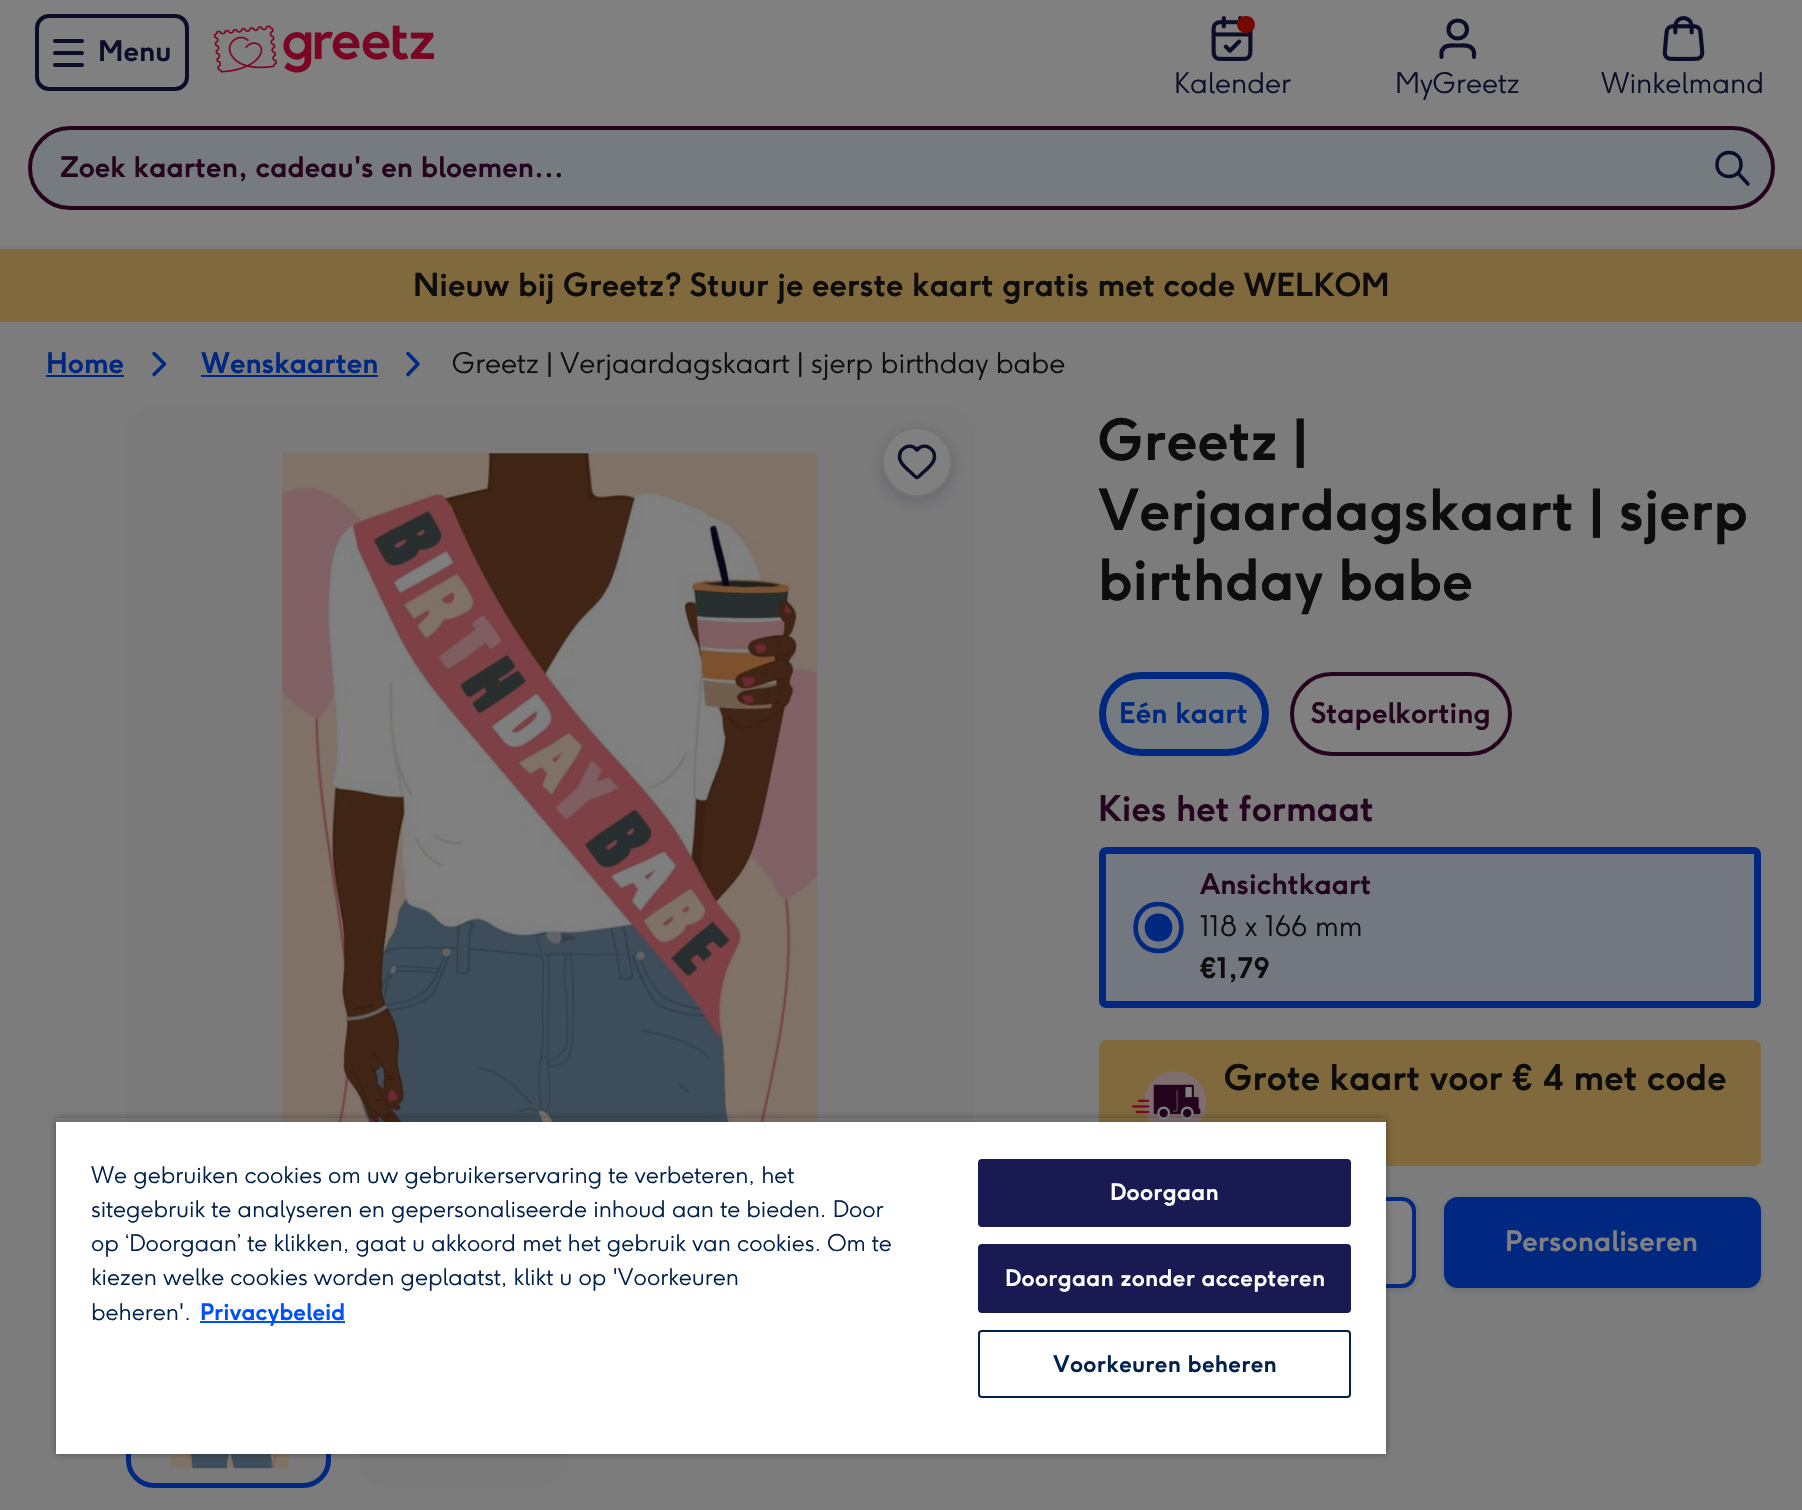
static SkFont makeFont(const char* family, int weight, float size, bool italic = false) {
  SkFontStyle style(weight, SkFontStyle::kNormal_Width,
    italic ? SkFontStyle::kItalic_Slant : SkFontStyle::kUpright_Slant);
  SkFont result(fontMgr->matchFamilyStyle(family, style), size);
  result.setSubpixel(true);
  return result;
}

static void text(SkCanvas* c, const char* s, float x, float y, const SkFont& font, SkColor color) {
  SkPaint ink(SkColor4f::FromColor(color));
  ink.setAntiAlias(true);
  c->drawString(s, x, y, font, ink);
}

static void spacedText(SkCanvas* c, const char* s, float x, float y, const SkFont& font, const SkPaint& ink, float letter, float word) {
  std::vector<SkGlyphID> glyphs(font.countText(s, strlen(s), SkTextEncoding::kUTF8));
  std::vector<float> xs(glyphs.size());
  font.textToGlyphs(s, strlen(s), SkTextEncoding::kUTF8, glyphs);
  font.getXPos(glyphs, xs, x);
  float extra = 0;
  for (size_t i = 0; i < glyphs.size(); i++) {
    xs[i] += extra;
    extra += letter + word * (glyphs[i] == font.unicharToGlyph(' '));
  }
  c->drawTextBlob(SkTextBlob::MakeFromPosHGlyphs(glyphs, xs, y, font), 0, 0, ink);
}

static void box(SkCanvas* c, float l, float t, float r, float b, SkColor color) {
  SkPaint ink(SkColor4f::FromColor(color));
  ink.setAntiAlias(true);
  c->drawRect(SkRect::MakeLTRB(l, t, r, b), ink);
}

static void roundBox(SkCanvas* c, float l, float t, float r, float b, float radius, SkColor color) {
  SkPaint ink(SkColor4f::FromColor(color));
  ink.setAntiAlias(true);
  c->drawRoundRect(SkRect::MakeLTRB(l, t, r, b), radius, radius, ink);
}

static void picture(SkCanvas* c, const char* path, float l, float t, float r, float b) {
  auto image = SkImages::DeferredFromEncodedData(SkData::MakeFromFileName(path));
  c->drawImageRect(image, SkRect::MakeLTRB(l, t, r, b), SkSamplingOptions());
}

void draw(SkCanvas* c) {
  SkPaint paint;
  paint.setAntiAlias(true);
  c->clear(0xff7c7c7d);
  box(c, 0, 0, 1802, 245, 0xff808080);
  paint.setStyle(SkPaint::kStroke_Style);
  paint.setStrokeWidth(4);
  paint.setColor(0xff0d0d29);
  c->drawRoundRect(SkRect::MakeLTRB(37, 16, 187, 89), 12, 12, paint);
  roundBox(c, 53, 39, 84, 43, 2, 0xff0d0d29);
  roundBox(c, 53, 51, 84, 55, 2, 0xff0d0d29);
  roundBox(c, 53, 63, 84, 67, 2, 0xff0d0d29);
  SkFont face1 = makeFont("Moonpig", 700, 28);
  text(c, "Menu", 98, 61, face1, 0xff0d0d29);
  picture(c, "img_01.png", 213, 25, 434, 73);
  picture(c, "img_02.png", 1211, 16, 1253, 61);
  roundBox(c, 1237, 16, 1255, 33, 8.5f, 0xff760800);
  SkFont face2 = makeFont("Moonpig", 300, 28);
  text(c, "Kalender", 1174, 93, face2, 0xff0d0d29);
  paint.setStrokeWidth(4.1f);
  paint.setStrokeCap(SkPaint::kRound_Cap);
  paint.setStrokeJoin(SkPaint::kRound_Join);
  c->drawPath(SkPathBuilder().moveTo(1474, 57).lineTo(1474, 52).cubicTo(1472, 44, 1463.5f, 45.5f, 1458, 45.5f).cubicTo(1452, 45.5f, 1443.5f, 44, 1441.5f, 52).lineTo(1441.5f, 57).moveTo(1467, 29.5f).cubicTo(1467, 41.5f, 1448.5f, 41.5f, 1448.5f, 29.5f).cubicTo(1448.5f, 17.5f, 1467, 17.5f, 1467, 29.5f).detach(), paint);
  text(c, "MyGreetz", 1395, 93, face2, 0xff0d0d29);
  picture(c, "img_03.png", 1662, 16, 1705, 61);
  text(c, "Winkelmand", 1601, 93, face2, 0xff0d0d29);
  paint.setStyle(SkPaint::kFill_Style);
  paint.setColor(0xff767b7f);
  c->drawRoundRect(SkRect::MakeLTRB(30, 128, 1773, 208), 40, 40, paint);
  paint.setStyle(SkPaint::kStroke_Style);
  paint.setStrokeWidth(4);
  paint.setStrokeCap(SkPaint::kButt_Cap);
  paint.setStrokeJoin(SkPaint::kMiter_Join);
  paint.setColor(0xff24051d);
  c->drawRoundRect(SkRect::MakeLTRB(30, 128, 1773, 208), 40, 40, paint);
  text(c, "Zoek kaarten, cadeau's en bloemen…", 60, 177, face1, 0xff24051d);
  paint.setStrokeWidth(3.5f);
  paint.setStrokeCap(SkPaint::kRound_Cap);
  paint.setStrokeJoin(SkPaint::kRound_Join);
  paint.setColor(0xff0d0d29);
  c->drawPath(SkPathBuilder().moveTo(1748, 184).lineTo(1738, 173).moveTo(1741, 164.5f).cubicTo(1741, 180.5f, 1717, 180.5f, 1717, 164.5f).cubicTo(1717, 148.5f, 1741, 148.5f, 1741, 164.5f).detach(), paint);
  box(c, 0, 249, 1802, 322, 0xff7f693d);
  SkFont face3 = makeFont("Moonpig", 700, 31.5f);
  text(c, "Nieuw bij Greetz? Stuur je eerste kaart gratis met code WELKOM", 413, 296, face3, 0xff0d0d0d);
  text(c, "Home", 46, 373, face1, 0xff002880);
  box(c, 46, 375, 124, 377, 0xff002880);
  paint.setColor(0xff002880);
  c->drawPath(SkPathBuilder().moveTo(154, 374.5f).lineTo(164.5f, 364).lineTo(154, 353.5f).detach(), paint);
  text(c, "Wenskaarten", 201, 373, face1, 0xff002880);
  box(c, 201, 375, 378, 377, 0xff002880);
  c->drawPath(SkPathBuilder().moveTo(408, 374.5f).lineTo(418, 364).lineTo(408, 353.5f).detach(), paint);
  text(c, "Greetz | Verjaardagskaart | sjerp birthday babe", 452, 373, face2, 0xff0d0d0d);
  roundBox(c, 126, 406, 973, 1253, 28, 0xff7a7a7a);
  picture(c, "img_04.png", 281, 453, 818, 1122);
  paint.setStyle(SkPaint::kFill_Style);
  paint.setColor(0x26000227);
  paint.setMaskFilter(SkMaskFilter::MakeBlur(kNormal_SkBlurStyle, 7));
  c->drawRoundRect(SkRect::MakeLTRB(882, 432, 952, 502), 35, 35, paint);
  paint.setMaskFilter(nullptr);
  paint.setColor(0xff808080);
  c->drawCircle(917, 462, 34, paint);
  paint.setStyle(SkPaint::kStroke_Style);
  paint.setStrokeWidth(2);
  paint.setStrokeCap(SkPaint::kButt_Cap);
  paint.setStrokeJoin(SkPaint::kMiter_Join);
  paint.setColor(0xff747474);
  c->drawCircle(917, 462, 34, paint);
  paint.setStrokeWidth(3.5f);
  paint.setStrokeCap(SkPaint::kRound_Cap);
  paint.setStrokeJoin(SkPaint::kRound_Join);
  paint.setColor(0xff0d0d29);
  c->drawPath(SkPathBuilder().moveTo(917, 450).cubicTo(909, 440.5f, 895.5f, 451, 900.5f, 461).cubicTo(902.5f, 465.5f, 907.5f, 469.5f, 911, 472.5f).cubicTo(911.5f, 473, 916, 477.5f, 917, 477.5f).cubicTo(918, 477.5f, 922.5f, 473, 923, 472.5f).cubicTo(926.5f, 469.5f, 931.5f, 465.5f, 933.5f, 461).cubicTo(938.5f, 451, 925, 440.5f, 917, 450).detach(), paint);
  paint.setStyle(SkPaint::kFill_Style);
  paint.setColor(0xff7a7a7a);
  c->drawRoundRect(SkRect::MakeLTRB(128.5f, 1283.5f, 328.5f, 1485.5f), 25.5f, 25.5f, paint);
  paint.setStyle(SkPaint::kStroke_Style);
  paint.setStrokeWidth(5);
  paint.setStrokeCap(SkPaint::kButt_Cap);
  paint.setStrokeJoin(SkPaint::kMiter_Join);
  paint.setColor(0xff002880);
  c->drawRoundRect(SkRect::MakeLTRB(128.5f, 1283.5f, 328.5f, 1485.5f), 25.5f, 25.5f, paint);
  picture(c, "img_05.png", 169, 1454, 289, 1469);
  roundBox(c, 359, 1281, 565, 1488, 28, 0xff7a7a7a);
  SkFont face4 = makeFont("Moonpig", 700, 56);
  text(c, "Greetz |", 1098, 460, face4, 0xff0d0d0d);
  text(c, "Verjaardagskaart | sjerp", 1098, 530, face4, 0xff0d0d0d);
  text(c, "birthday babe", 1098, 600, face4, 0xff0d0d0d);
  paint.setStyle(SkPaint::kFill_Style);
  paint.setColor(0xff767b7f);
  c->drawRoundRect(SkRect::MakeLTRB(1102.5f, 675.5f, 1265.5f, 752.5f), 38.5f, 38.5f, paint);
  paint.setStyle(SkPaint::kStroke_Style);
  paint.setStrokeWidth(7);
  paint.setColor(0xff002880);
  c->drawRoundRect(SkRect::MakeLTRB(1102.5f, 675.5f, 1265.5f, 752.5f), 38.5f, 38.5f, paint);
  text(c, "Eén kaart", 1119, 723, face1, 0xff002880);
  paint.setStyle(SkPaint::kFill_Style);
  paint.setColor(0xff808080);
  c->drawRoundRect(SkRect::MakeLTRB(1292, 674, 1510, 754), 40, 40, paint);
  paint.setStyle(SkPaint::kStroke_Style);
  paint.setStrokeWidth(4);
  paint.setColor(0xff24051d);
  c->drawRoundRect(SkRect::MakeLTRB(1292, 674, 1510, 754), 40, 40, paint);
  text(c, "Stapelkorting", 1311, 723, face1, 0xff24051d);
  SkFont face5 = makeFont("Moonpig", 700, 35);
  text(c, "Kies het formaat", 1098, 821, face5, 0xff24051d);
  paint.setStyle(SkPaint::kFill_Style);
  paint.setColor(0xff737780);
  c->drawRoundRect(SkRect::MakeLTRB(1102.5f, 850.5f, 1757.5f, 1004.5f), 3.5f, 3.5f, paint);
  paint.setStyle(SkPaint::kStroke_Style);
  paint.setStrokeWidth(7);
  paint.setColor(0xff002880);
  c->drawRoundRect(SkRect::MakeLTRB(1102.5f, 850.5f, 1757.5f, 1004.5f), 3.5f, 3.5f, paint);
  paint.setStrokeWidth(4.7f);
  paint.setStrokeCap(SkPaint::kRound_Cap);
  paint.setStrokeJoin(SkPaint::kRound_Join);
  c->drawPath(SkPathBuilder().moveTo(1158.5f, 951).cubicTo(1189, 951, 1189, 904, 1158.5f, 904).cubicTo(1128, 904, 1128, 951, 1158.5f, 951).detach(), paint);
  paint.setStyle(SkPaint::kFill_Style);
  c->drawPath(SkPathBuilder().moveTo(1158.5f, 941.5f).cubicTo(1177, 941.5f, 1177, 913.5f, 1158.5f, 913.5f).cubicTo(1140, 913.5f, 1140, 941.5f, 1158.5f, 941.5f).detach(), paint);
  text(c, "Ansichtkaart", 1200, 894, face1, 0xff24051d);
  text(c, "118 x 166 mm", 1200, 936, face2, 0xff0d0d0d);
  text(c, "€1,79", 1200, 978, face1, 0xff0d0d0d);
  roundBox(c, 1099, 1040, 1761, 1166, 7, 0xff7f693d);
  picture(c, "img_06.png", 1131, 1071, 1207, 1122);
  text(c, "Grote kaart voor € 4 met code", 1224, 1090, face5, 0xff0d0d0d);
  paint.setColor(0x26001027);
  paint.setMaskFilter(SkMaskFilter::MakeBlur(kNormal_SkBlurStyle, 3.5f));
  c->drawRoundRect(SkRect::MakeLTRB(1099, 1199, 1416, 1290), 14, 14, paint);
  paint.setMaskFilter(nullptr);
  paint.setColor(0xff808080);
  c->drawRoundRect(SkRect::MakeLTRB(1101, 1199, 1414, 1286), 12, 12, paint);
  paint.setStyle(SkPaint::kStroke_Style);
  paint.setStrokeWidth(4);
  paint.setStrokeCap(SkPaint::kButt_Cap);
  paint.setStrokeJoin(SkPaint::kMiter_Join);
  paint.setColor(0xff002880);
  c->drawRoundRect(SkRect::MakeLTRB(1101, 1199, 1414, 1286), 12, 12, paint);
  paint.setStyle(SkPaint::kFill_Style);
  paint.setColor(0x26001027);
  paint.setMaskFilter(SkMaskFilter::MakeBlur(kNormal_SkBlurStyle, 3.5f));
  c->drawRoundRect(SkRect::MakeLTRB(1444, 1199, 1761, 1290), 14, 14, paint);
  paint.setMaskFilter(nullptr);
  paint.setColor(0xff002880);
  c->drawRoundRect(SkRect::MakeLTRB(1446, 1199, 1759, 1286), 12, 12, paint);
  paint.setStyle(SkPaint::kStroke_Style);
  c->drawRoundRect(SkRect::MakeLTRB(1446, 1199, 1759, 1286), 12, 12, paint);
  text(c, "Personaliseren", 1505, 1251, face1, 0xff808080);
  c->save();
  c->clipPath(SkPathBuilder(SkPathFillType::kEvenOdd).moveTo(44, 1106).lineTo(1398, 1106).lineTo(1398, 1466).lineTo(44, 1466).close().moveTo(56, 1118).lineTo(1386, 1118).lineTo(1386, 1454).lineTo(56, 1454).close().detach(), true);
  paint.setStyle(SkPaint::kFill_Style);
  paint.setColor(0x59000000);
  paint.setMaskFilter(SkMaskFilter::MakeBlur(kNormal_SkBlurStyle, 3.5f));
  c->drawRect(SkRect::MakeLTRB(56, 1118, 1386, 1454), paint);
  paint.setMaskFilter(nullptr);
  c->restore();
  c->save();
  c->clipRect(SkRect::MakeLTRB(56, 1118, 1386, 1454));
  paint.setColor(0x33000000);
  paint.setMaskFilter(SkMaskFilter::MakeBlur(kNormal_SkBlurStyle, 3.5f));
  c->drawRect(SkRect::MakeLTRB(56, 1122, 1386, 1454), paint);
  paint.setMaskFilter(nullptr);
  c->restore();
  box(c, 56, 1122, 1386, 1454, 0xffffffff);
  SkFont face6 = makeFont("Moonpig", 300, 22.75f);
  text(c, "We gebruiken cookies om uw gebruikerservaring te verbeteren, het", 91, 1183, face6, 0xff00204d);
  text(c, "sitegebruik te analyseren en gepersonaliseerde inhoud aan te bieden. Door", 91, 1217, face6, 0xff00204d);
  text(c, "op ‘Doorgaan’ te klikken, gaat u akkoord met het gebruik van cookies. Om te", 91, 1251, face6, 0xff00204d);
  text(c, "kiezen welke cookies worden geplaatst, klikt u op 'Voorkeuren", 91, 1285, face6, 0xff00204d);
  text(c, "beheren'.", 91, 1320, face6, 0xff00204d);
  box(c, 200, 1321, 345, 1323, 0xff0050ff);
  SkFont face7 = makeFont("Moonpig", 700, 22.75f);
  text(c, "Privacybeleid", 200, 1320, face7, 0xff0050ff);
  paint.setColor(0xff191a51);
  c->drawRoundRect(SkRect::MakeLTRB(979, 1160, 1350, 1226), 3, 3, paint);
  paint.setStyle(SkPaint::kStroke_Style);
  paint.setStrokeWidth(2);
  c->drawRoundRect(SkRect::MakeLTRB(979, 1160, 1350, 1226), 3, 3, paint);
  paint.setStyle(SkPaint::kFill_Style);
  paint.setColor(0xffffffff);
  spacedText(c, "Doorgaan", 1110, 1200, face7, paint, 0.25f, 0);
  paint.setColor(0xff191a51);
  c->drawRoundRect(SkRect::MakeLTRB(979, 1245, 1350, 1312), 3, 3, paint);
  paint.setStyle(SkPaint::kStroke_Style);
  c->drawRoundRect(SkRect::MakeLTRB(979, 1245, 1350, 1312), 3, 3, paint);
  paint.setStyle(SkPaint::kFill_Style);
  paint.setColor(0xffffffff);
  spacedText(c, "Doorgaan zonder accepteren", 1005, 1286, face7, paint, 0.25f, 0);
  paint.setStyle(SkPaint::kStroke_Style);
  paint.setColor(0xff00204d);
  c->drawRoundRect(SkRect::MakeLTRB(979, 1331, 1350, 1397), 3, 3, paint);
  paint.setStyle(SkPaint::kFill_Style);
  spacedText(c, "Voorkeuren beheren", 1053, 1372, face7, paint, 0.25f, 0);
}
